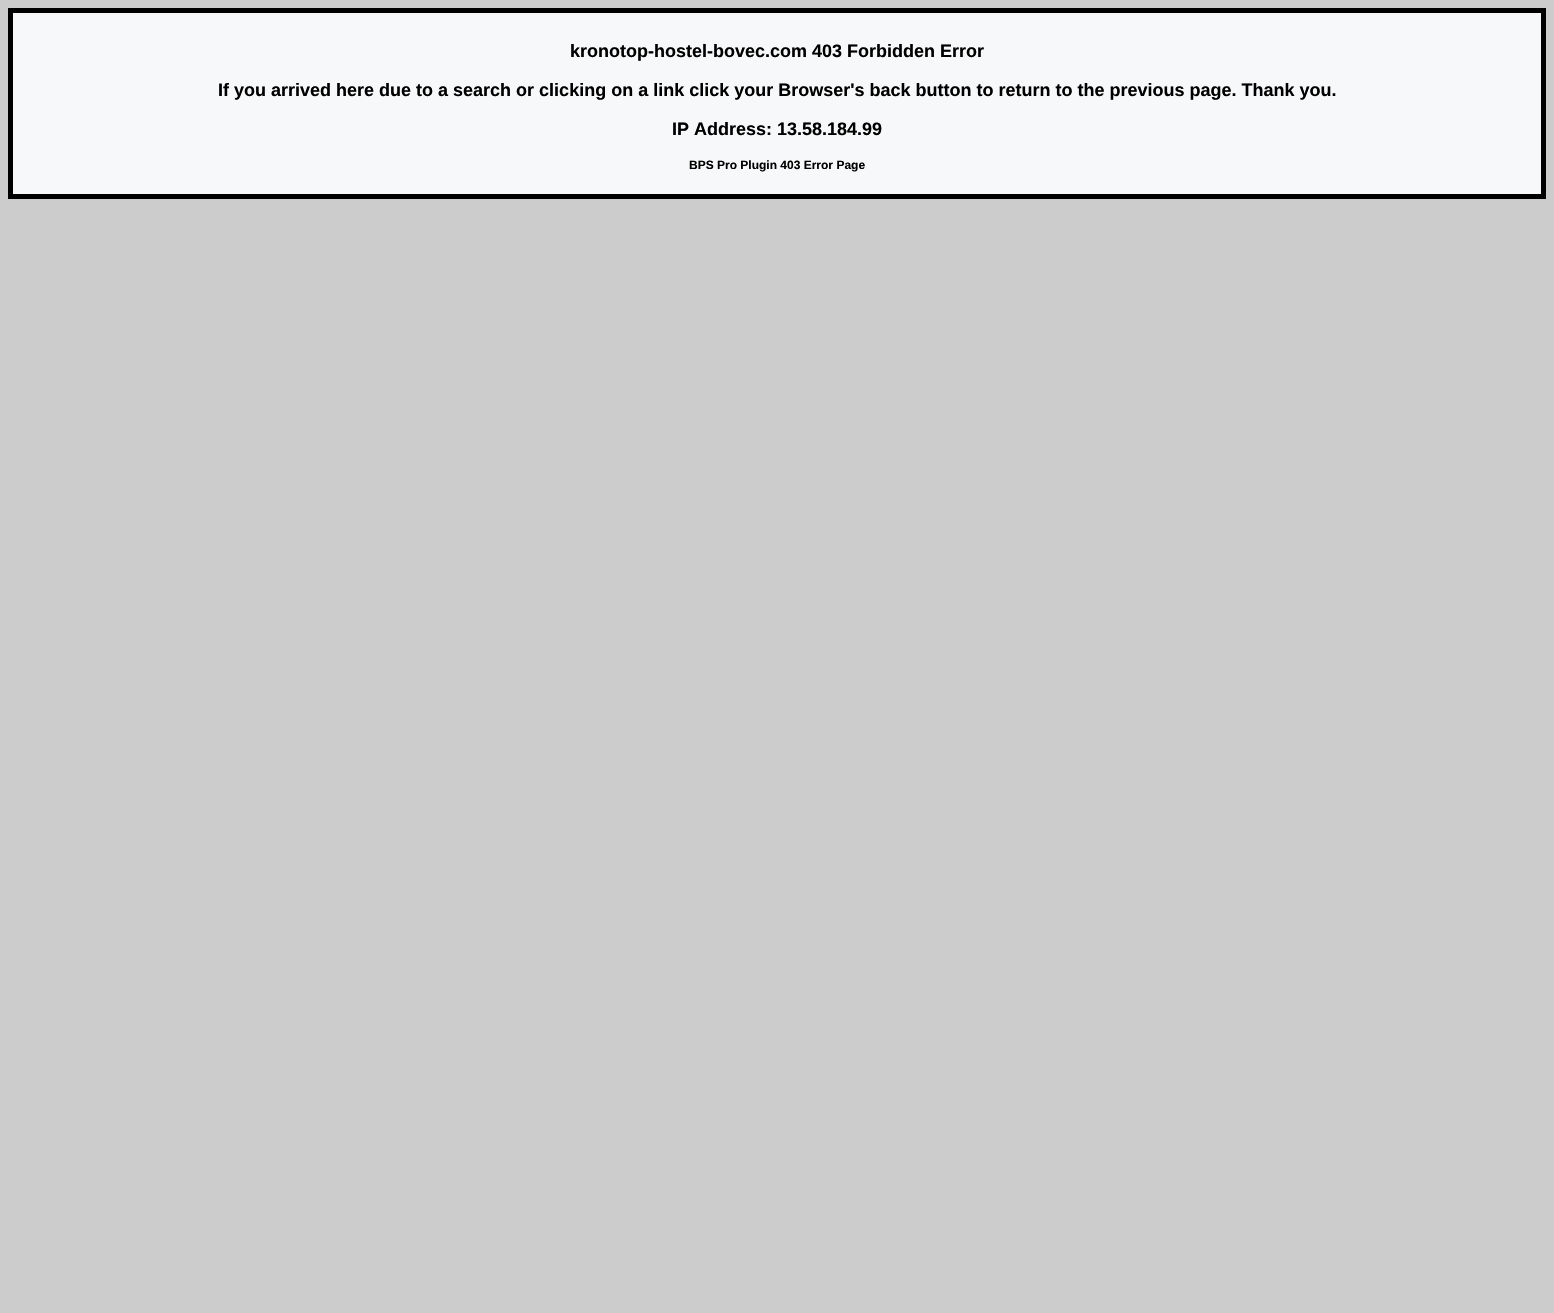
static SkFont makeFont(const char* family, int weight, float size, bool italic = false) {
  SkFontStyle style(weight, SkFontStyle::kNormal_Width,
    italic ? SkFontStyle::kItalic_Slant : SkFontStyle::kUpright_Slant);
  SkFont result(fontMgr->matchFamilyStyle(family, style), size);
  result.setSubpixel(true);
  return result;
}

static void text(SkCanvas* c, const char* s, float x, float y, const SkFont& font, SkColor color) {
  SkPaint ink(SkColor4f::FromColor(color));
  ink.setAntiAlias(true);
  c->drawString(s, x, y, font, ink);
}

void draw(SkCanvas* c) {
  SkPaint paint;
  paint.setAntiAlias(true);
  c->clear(0xffcccccc);
  paint.setColor(0xfff7f8f9);
  c->drawRect(SkRect::MakeLTRB(10.5f, 10.5f, 1543.5f, 196.5f), paint);
  paint.setStyle(SkPaint::kStroke_Style);
  paint.setStrokeWidth(5);
  paint.setColor(0xff000000);
  c->drawRect(SkRect::MakeLTRB(10.5f, 10.5f, 1543.5f, 196.5f), paint);
  SkFont face1 = makeFont("Liberation Sans", 700, 18);
  text(c, "kronotop-hostel-bovec.com 403 Forbidden Error", 570, 57, face1, 0xff000000);
  text(c, "If you arrived here due to a search or clicking on a link click your Browser's back button to return to the previous page. Thank you.", 218, 96, face1, 0xff000000);
  text(c, "IP Address: 13.58.184.99", 672, 135, face1, 0xff000000);
  SkFont face2 = makeFont("Liberation Sans", 700, 12);
  text(c, "BPS Pro Plugin 403 Error Page", 689, 169, face2, 0xff000000);
}
